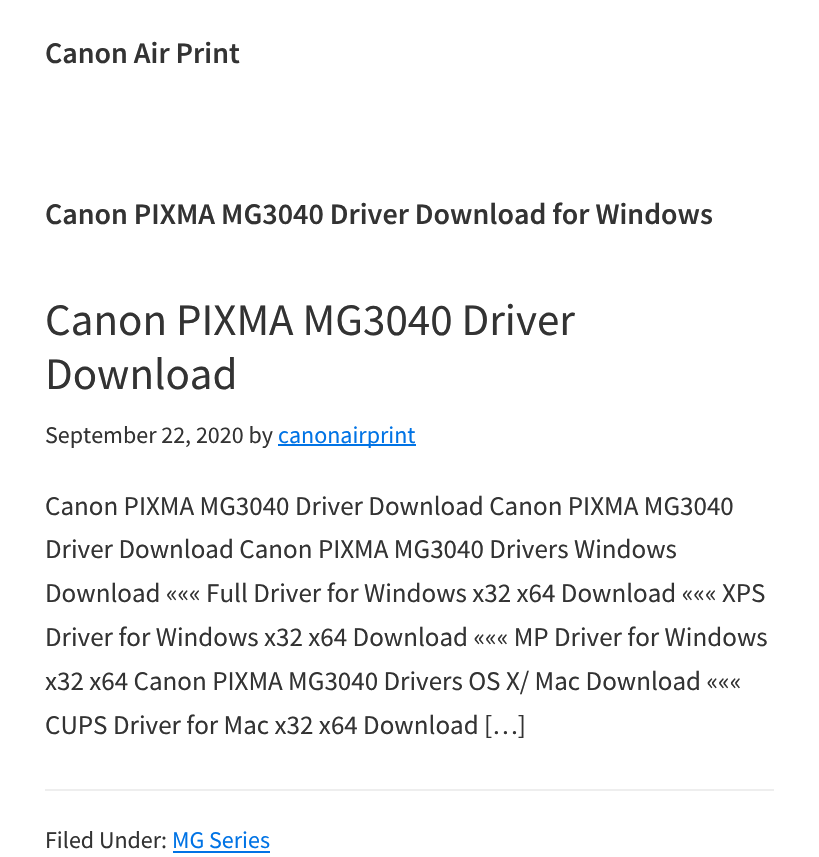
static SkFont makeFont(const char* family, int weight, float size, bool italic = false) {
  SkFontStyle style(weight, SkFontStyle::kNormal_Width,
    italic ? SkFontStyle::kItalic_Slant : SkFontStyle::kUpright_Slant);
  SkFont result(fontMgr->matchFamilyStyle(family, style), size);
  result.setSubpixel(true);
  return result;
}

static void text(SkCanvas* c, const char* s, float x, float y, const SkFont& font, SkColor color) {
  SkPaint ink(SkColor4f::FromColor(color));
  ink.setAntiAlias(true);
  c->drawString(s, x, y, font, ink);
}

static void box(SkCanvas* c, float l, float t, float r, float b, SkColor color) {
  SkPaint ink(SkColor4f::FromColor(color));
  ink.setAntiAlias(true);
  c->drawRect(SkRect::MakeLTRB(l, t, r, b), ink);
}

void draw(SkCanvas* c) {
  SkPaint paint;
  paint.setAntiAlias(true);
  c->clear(0xffffffff);
  SkFont face1 = makeFont("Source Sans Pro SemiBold", 600, 30);
  text(c, "Canon Air Print", 45, 63, face1, 0xff333333);
  text(c, "Canon PIXMA MG3040 Driver Download for Windows", 45, 224, face1, 0xff333333);
  SkFont face2 = makeFont("Source Sans Pro", 400, 45);
  text(c, "Canon PIXMA MG3040 Driver", 45, 335, face2, 0xff333333);
  text(c, "Download", 45, 389, face2, 0xff333333);
  SkFont face3 = makeFont("Source Sans Pro", 400, 24);
  text(c, "September 22, 2020 by", 45, 443, face3, 0xff333333);
  box(c, 278, 444, 416, 446, 0xff0073e5);
  text(c, "canonairprint", 278, 443, face3, 0xff0073e5);
  SkFont face4 = makeFont("Source Sans Pro", 400, 27);
  text(c, "Canon PIXMA MG3040 Driver Download Canon PIXMA MG3040", 45, 515, face4, 0xff333333);
  text(c, "Driver Download Canon PIXMA MG3040 Drivers Windows", 45, 558, face4, 0xff333333);
  text(c, "Download ««« Full Driver for Windows x32 x64 Download ««« XPS", 45, 602, face4, 0xff333333);
  text(c, "Driver for Windows x32 x64 Download ««« MP Driver for Windows", 45, 646, face4, 0xff333333);
  text(c, "x32 x64 Canon PIXMA MG3040 Drivers OS X/ Mac Download «««", 45, 690, face4, 0xff333333);
  text(c, "CUPS Driver for Mac x32 x64 Download […]", 45, 734, face4, 0xff333333);
  box(c, 45, 789, 774, 791, 0xffeeeeee);
  text(c, "Filed Under:", 45, 848, face3, 0xff333333);
  text(c, "MG Series", 172, 848, face3, 0xff0073e5);
  box(c, 173, 851, 270, 853, 0xff0073e5);
}
